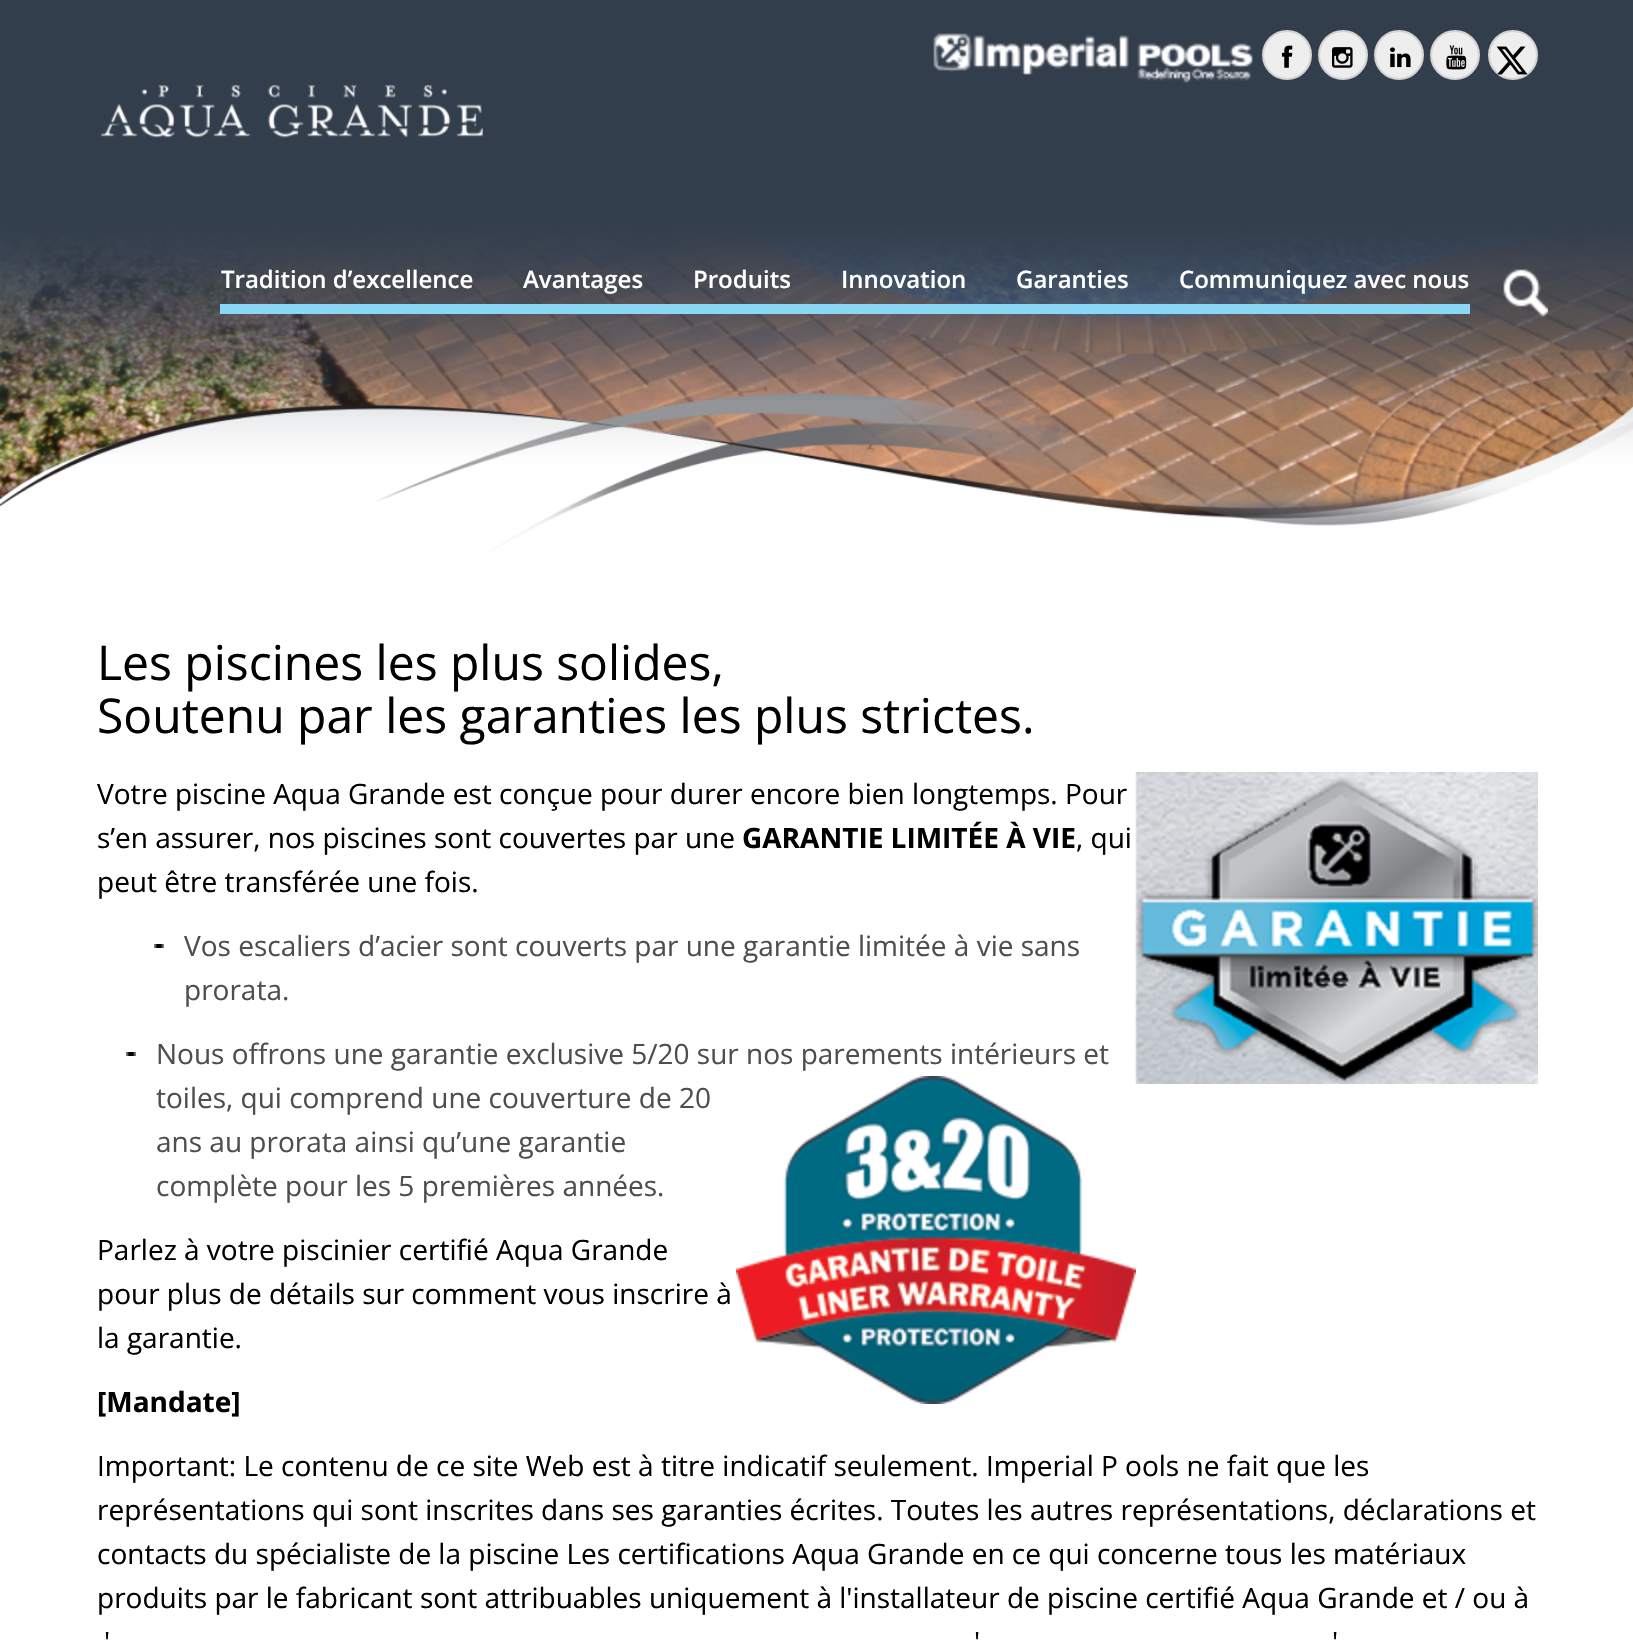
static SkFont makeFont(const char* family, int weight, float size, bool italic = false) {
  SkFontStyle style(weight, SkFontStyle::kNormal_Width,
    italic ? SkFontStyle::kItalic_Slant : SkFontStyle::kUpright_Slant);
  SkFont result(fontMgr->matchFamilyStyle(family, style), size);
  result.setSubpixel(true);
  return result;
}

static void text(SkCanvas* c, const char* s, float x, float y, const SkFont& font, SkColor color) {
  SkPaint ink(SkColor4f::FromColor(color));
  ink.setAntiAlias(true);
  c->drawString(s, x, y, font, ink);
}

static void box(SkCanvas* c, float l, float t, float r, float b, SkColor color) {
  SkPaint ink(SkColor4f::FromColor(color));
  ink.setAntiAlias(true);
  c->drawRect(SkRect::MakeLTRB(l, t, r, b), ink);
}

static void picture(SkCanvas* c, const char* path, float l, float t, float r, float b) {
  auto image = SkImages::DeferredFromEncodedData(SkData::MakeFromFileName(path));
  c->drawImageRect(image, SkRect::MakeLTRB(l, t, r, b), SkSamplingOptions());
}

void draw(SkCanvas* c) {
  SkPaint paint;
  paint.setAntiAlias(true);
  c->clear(0xffffffff);
  picture(c, "img_01.png", 0, 225, 1633, 553);
  {
    const SkColor colors[] = {0xff333e4d, 0x0a333e4d};
    const float stops[] = {0.56f, 1};
    const SkPoint ends[] = {{817, 0}, {817, 400}};
    paint.setShader(SkGradientShader::MakeLinear(ends, colors, stops, 2, SkTileMode::kClamp));
    paint.setAlpha(255);
  }
  c->drawRect(SkRect::MakeLTRB(0, 0, 1633, 400), paint);
  picture(c, "img_02.png", 933, 33, 1253, 83);
  paint.setShader(nullptr);
  paint.setColor(0xffeeeeee);
  c->drawCircle(1287, 55, 24, paint);
  paint.setStyle(SkPaint::kStroke_Style);
  paint.setStrokeWidth(2);
  paint.setColor(0xffd3d3d3);
  c->drawCircle(1287, 55, 24, paint);
  picture(c, "img_03.png", 1282, 45, 1293, 68);
  paint.setStyle(SkPaint::kFill_Style);
  paint.setColor(0xffeeeeee);
  c->drawCircle(1343, 55, 24, paint);
  paint.setStyle(SkPaint::kStroke_Style);
  paint.setColor(0xffd3d3d3);
  c->drawCircle(1343, 55, 24, paint);
  picture(c, "img_04.png", 1332, 47, 1353, 68);
  paint.setStyle(SkPaint::kFill_Style);
  paint.setColor(0xffeeeeee);
  c->drawCircle(1399, 55, 24, paint);
  paint.setStyle(SkPaint::kStroke_Style);
  paint.setColor(0xffd3d3d3);
  c->drawCircle(1399, 55, 24, paint);
  picture(c, "img_05.png", 1390, 47, 1411, 68);
  paint.setStyle(SkPaint::kFill_Style);
  paint.setColor(0xffeeeeee);
  c->drawCircle(1455, 55, 24, paint);
  paint.setStyle(SkPaint::kStroke_Style);
  paint.setColor(0xffd3d3d3);
  c->drawCircle(1455, 55, 24, paint);
  picture(c, "img_06.png", 1446, 45, 1467, 70);
  paint.setStyle(SkPaint::kFill_Style);
  paint.setColor(0xffeeeeee);
  c->drawCircle(1513, 55, 24, paint);
  paint.setStyle(SkPaint::kStroke_Style);
  paint.setColor(0xffd3d3d3);
  c->drawCircle(1513, 55, 24, paint);
  picture(c, "img_07.png", 1496, 46, 1528, 75);
  picture(c, "img_08.png", 100, 85, 483, 138);
  box(c, 220, 304, 1470, 314, 0xff8bd7f6);
  SkFont face1 = makeFont("Open Sans", 600, 24);
  text(c, "Tradition d’excellence", 221, 288, face1, 0xffffffff);
  text(c, "Avantages", 523, 288, face1, 0xffffffff);
  text(c, "Produits", 693, 288, face1, 0xffffffff);
  text(c, "Innovation", 841, 288, face1, 0xffffffff);
  text(c, "Garanties", 1016, 288, face1, 0xffffffff);
  text(c, "Communiquez avec nous", 1179, 288, face1, 0xffffffff);
  picture(c, "img_09.png", 1503, 269, 1548, 317);
  SkFont face2 = makeFont("Open Sans", 400, 48);
  text(c, "Les piscines les plus solides,", 97, 680, face2, 0xff000000);
  text(c, "Soutenu par les garanties les plus strictes.", 97, 733, face2, 0xff000000);
  SkFont face3 = makeFont("Open Sans", 400, 28);
  text(c, "Votre piscine Aqua Grande est conçue pour durer encore bien longtemps. Pour", 97, 804, face3, 0xff000000);
  picture(c, "img_10.png", 1135, 772, 1538, 1084);
  text(c, "s’en assurer, nos piscines sont couvertes par une", 97, 848, face3, 0xff000000);
  SkFont face4 = makeFont("Open Sans", 700, 28);
  text(c, "GARANTIE LIMITÉE À VIE", 742, 848, face4, 0xff000000);
  text(c, ", qui", 1076, 848, face3, 0xff000000);
  text(c, "peut être transférée une fois.", 97, 892, face3, 0xff000000);
  picture(c, "img_11.png", 154, 944, 164, 948);
  text(c, "Vos escaliers d’acier sont couverts par une garantie limitée à vie sans", 184, 956, face3, 0xff4e4e4e);
  text(c, "prorata.", 184, 1000, face3, 0xff4e4e4e);
  picture(c, "img_11.png", 126, 1052, 136, 1056);
  text(c, "Nous offrons une garantie exclusive 5/20 sur nos parements intérieurs et", 156, 1064, face3, 0xff4e4e4e);
  text(c, "toiles, qui comprend une couverture de 20", 156, 1108, face3, 0xff4e4e4e);
  picture(c, "img_12.png", 736, 1076, 1136, 1404);
  text(c, "ans au prorata ainsi qu’une garantie", 156, 1152, face3, 0xff4e4e4e);
  text(c, "complète pour les 5 premières années.", 156, 1196, face3, 0xff4e4e4e);
  text(c, "Parlez à votre piscinier certifié Aqua Grande", 97, 1260, face3, 0xff000000);
  text(c, "pour plus de détails sur comment vous inscrire à", 97, 1304, face3, 0xff000000);
  text(c, "la garantie.", 97, 1348, face3, 0xff000000);
  text(c, "[Mandate]", 97, 1412, face4, 0xff000000);
  text(c, "Important: Le contenu de ce site Web est à titre indicatif seulement. Imperial P ools ne fait que les", 97, 1476, face3, 0xff000000);
  text(c, "représentations qui sont inscrites dans ses garanties écrites. Toutes les autres représentations, déclarations et", 97, 1520, face3, 0xff000000);
  text(c, "contacts du spécialiste de la piscine Les certifications Aqua Grande en ce qui concerne tous les matériaux", 97, 1564, face3, 0xff000000);
  text(c, "produits par le fabricant sont attribuables uniquement à l'installateur de piscine certifié Aqua Grande et / ou à", 97, 1608, face3, 0xff000000);
  text(c, "'", 104, 1652, face3, 0xff000000);
  text(c, "'", 974, 1652, face3, 0xff000000);
  text(c, "'", 1332, 1652, face3, 0xff000000);
}
